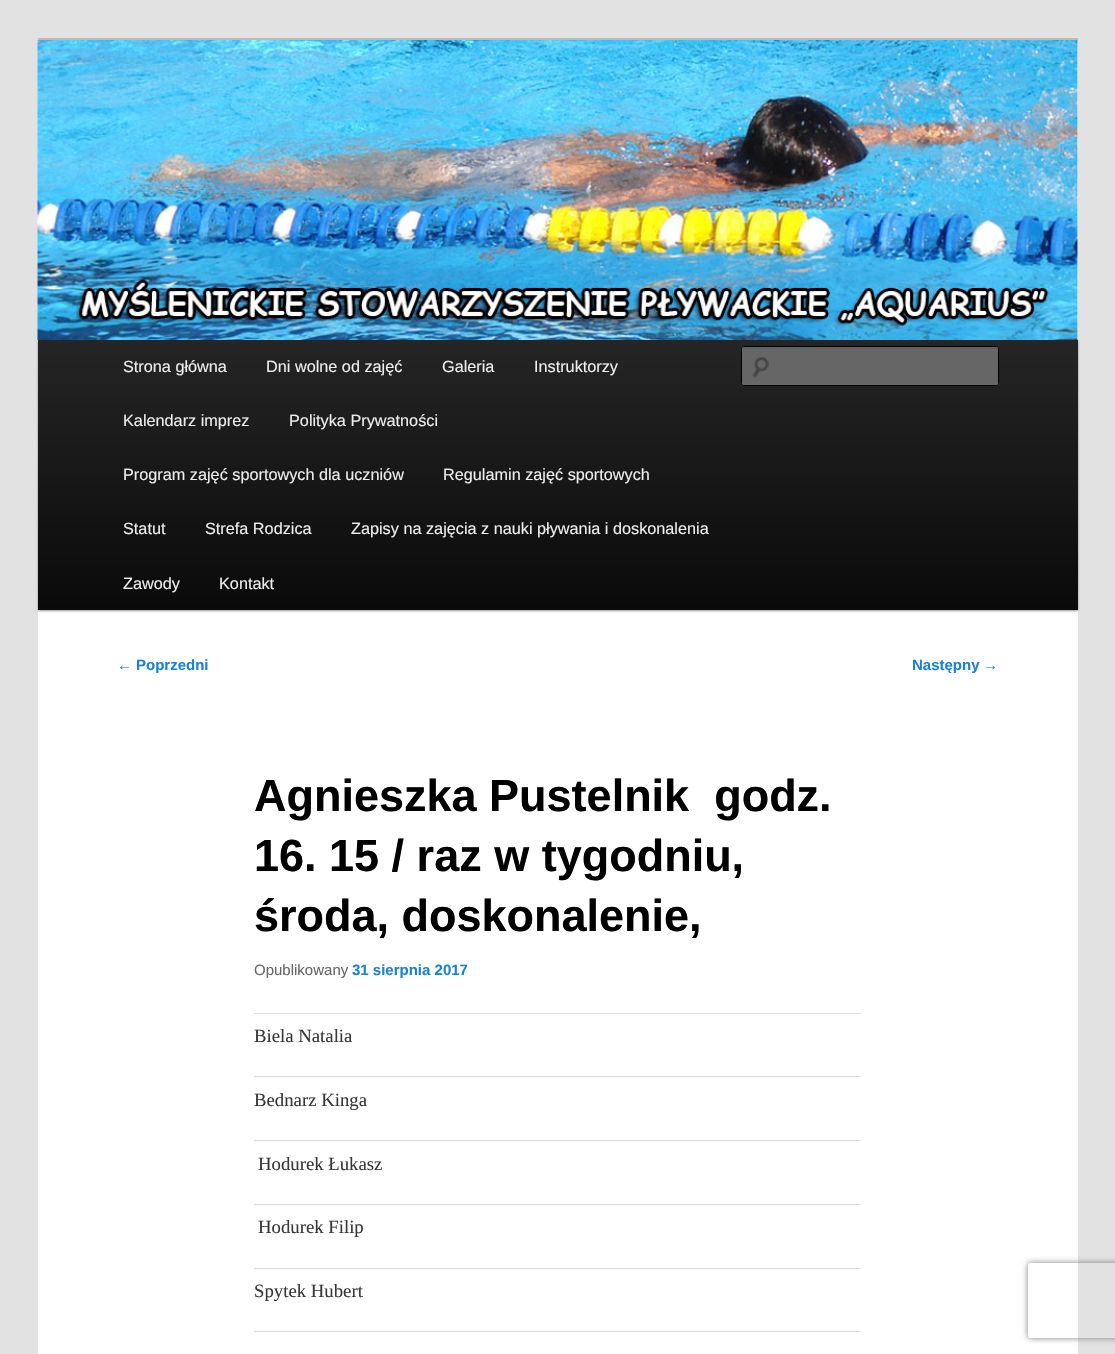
static SkFont makeFont(const char* family, int weight, float size, bool italic = false) {
  SkFontStyle style(weight, SkFontStyle::kNormal_Width,
    italic ? SkFontStyle::kItalic_Slant : SkFontStyle::kUpright_Slant);
  SkFont result(fontMgr->matchFamilyStyle(family, style), size);
  result.setSubpixel(true);
  return result;
}

static void text(SkCanvas* c, const char* s, float x, float y, const SkFont& font, SkColor color) {
  SkPaint ink(SkColor4f::FromColor(color));
  ink.setAntiAlias(true);
  c->drawString(s, x, y, font, ink);
}

static void box(SkCanvas* c, float l, float t, float r, float b, SkColor color) {
  SkPaint ink(SkColor4f::FromColor(color));
  ink.setAntiAlias(true);
  c->drawRect(SkRect::MakeLTRB(l, t, r, b), ink);
}

static void roundBox(SkCanvas* c, float l, float t, float r, float b, float radius, SkColor color) {
  SkPaint ink(SkColor4f::FromColor(color));
  ink.setAntiAlias(true);
  c->drawRoundRect(SkRect::MakeLTRB(l, t, r, b), radius, radius, ink);
}

static void picture(SkCanvas* c, const char* path, float l, float t, float r, float b) {
  auto image = SkImages::DeferredFromEncodedData(SkData::MakeFromFileName(path));
  c->drawImageRect(image, SkRect::MakeLTRB(l, t, r, b), SkSamplingOptions());
}

void draw(SkCanvas* c) {
  SkPaint paint;
  paint.setAntiAlias(true);
  c->clear(0xffe2e2e2);
  box(c, 38, 41, 1078, 1354, 0xffffffff);
  box(c, 38, 38, 1078, 41, 0xffbbbbbb);
  paint.setColor(0x66000000);
  paint.setMaskFilter(SkMaskFilter::MakeBlur(kNormal_SkBlurStyle, 1));
  c->drawRect(SkRect::MakeLTRB(38, 341, 1078, 611), paint);
  paint.setMaskFilter(nullptr);
  picture(c, "img_01.png", 37, 40, 1078, 340);
  {
    const SkColor colors[] = {0xff252525, 0xff0a0a0a};
    const float stops[] = {0, 1};
    const SkPoint ends[] = {{558, 340}, {558, 610}};
    paint.setShader(SkGradientShader::MakeLinear(ends, colors, stops, 2, SkTileMode::kClamp));
    paint.setAlpha(255);
  }
  c->drawRect(SkRect::MakeLTRB(38, 340, 1078, 610), paint);
  SkFont face1 = makeFont("Liberation Sans", 400, 16.25f);
  text(c, "Strona główna", 123, 372, face1, 0xffeeeeee);
  text(c, "Dni wolne od zajęć", 266, 372, face1, 0xffeeeeee);
  text(c, "Galeria", 442, 372, face1, 0xffeeeeee);
  text(c, "Instruktorzy", 534, 372, face1, 0xffeeeeee);
  text(c, "Kalendarz imprez", 123, 426, face1, 0xffeeeeee);
  text(c, "Polityka Prywatności", 289, 426, face1, 0xffeeeeee);
  text(c, "Program zajęć sportowych dla uczniów", 123, 480, face1, 0xffeeeeee);
  text(c, "Regulamin zajęć sportowych", 443, 480, face1, 0xffeeeeee);
  text(c, "Statut", 123, 534, face1, 0xffeeeeee);
  text(c, "Strefa Rodzica", 205, 534, face1, 0xffeeeeee);
  text(c, "Zapisy na zajęcia z nauki pływania i doskonalenia", 351, 534, face1, 0xffeeeeee);
  text(c, "Zawody", 123, 589, face1, 0xffeeeeee);
  text(c, "Kontakt", 219, 589, face1, 0xffeeeeee);
  roundBox(c, 741, 346, 999, 386, 2.5f, 0xff666666);
  picture(c, "img_02.png", 752, 357, 769, 378);
  paint.setShader(nullptr);
  paint.setColor(0xff5c5c5c);
  c->drawPath(SkPathBuilder().moveTo(744, 349).lineTo(996, 349).cubicTo(997, 349, 998, 349, 998, 350).lineTo(998, 348).lineTo(744, 348).lineTo(743, 349).close().detach(), paint);
  paint.setStyle(SkPaint::kStroke_Style);
  paint.setStrokeWidth(1);
  paint.setColor(0xff000000);
  c->drawRoundRect(SkRect::MakeLTRB(741.5f, 346.5f, 998.5f, 385.5f), 2, 2, paint);
  SkFont face2 = makeFont("Liberation Sans", 400, 15);
  text(c, "←", 117, 670, face2, 0xff1982d1);
  SkFont face3 = makeFont("Liberation Sans", 700, 15);
  text(c, "Poprzedni", 136, 670, face3, 0xff1982d1);
  text(c, "Następny", 912, 670, face3, 0xff1982d1);
  text(c, "→", 983, 670, face2, 0xff1982d1);
  SkFont face4 = makeFont("Liberation Sans", 700, 45);
  text(c, "Agnieszka Pustelnik  godz.", 254, 811, face4, 0xff000000);
  text(c, "16. 15 / raz w tygodniu,", 254, 871, face4, 0xff000000);
  text(c, "środa, doskonalenie,", 254, 931, face4, 0xff000000);
  text(c, "Opublikowany", 254, 975, face2, 0xff666666);
  text(c, "31 sierpnia 2017", 352, 975, face3, 0xff1982d1);
  box(c, 254, 1013, 861, 1014, 0xffdddddd);
  SkFont face5 = makeFont("Liberation Serif", 400, 18.75f);
  text(c, "Biela Natalia", 254, 1042, face5, 0xff373737);
  box(c, 254, 1076, 861, 1077, 0xffdddddd);
  text(c, "Bednarz Kinga", 254, 1106, face5, 0xff373737);
  box(c, 254, 1140, 861, 1141, 0xffdddddd);
  text(c, "Hodurek Łukasz", 258, 1170, face5, 0xff373737);
  box(c, 254, 1204, 861, 1205, 0xffdddddd);
  text(c, "Hodurek Filip", 258, 1233, face5, 0xff373737);
  box(c, 254, 1268, 861, 1269, 0xffdddddd);
  text(c, "Spytek Hubert", 254, 1297, face5, 0xff373737);
  box(c, 254, 1331, 861, 1332, 0xffdddddd);
  c->save();
  c->clipPath(SkPathBuilder(SkPathFillType::kEvenOdd).moveTo(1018, 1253).lineTo(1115, 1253).lineTo(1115, 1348).lineTo(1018, 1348).close().moveTo(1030.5f, 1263).lineTo(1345.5f, 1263).cubicTo(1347, 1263, 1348, 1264, 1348, 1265.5f).lineTo(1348, 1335.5f).cubicTo(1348, 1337, 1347, 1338, 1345.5f, 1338).lineTo(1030.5f, 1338).cubicTo(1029, 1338, 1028, 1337, 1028, 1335.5f).lineTo(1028, 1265.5f).cubicTo(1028, 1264, 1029, 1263, 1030.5f, 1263).close().detach(), true);
  paint.setStyle(SkPaint::kFill_Style);
  paint.setColor(0xff808080);
  paint.setMaskFilter(SkMaskFilter::MakeBlur(kNormal_SkBlurStyle, 3));
  c->drawRoundRect(SkRect::MakeLTRB(1028, 1263, 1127, 1338), 2.5f, 2.5f, paint);
  paint.setMaskFilter(nullptr);
  c->restore();
}
